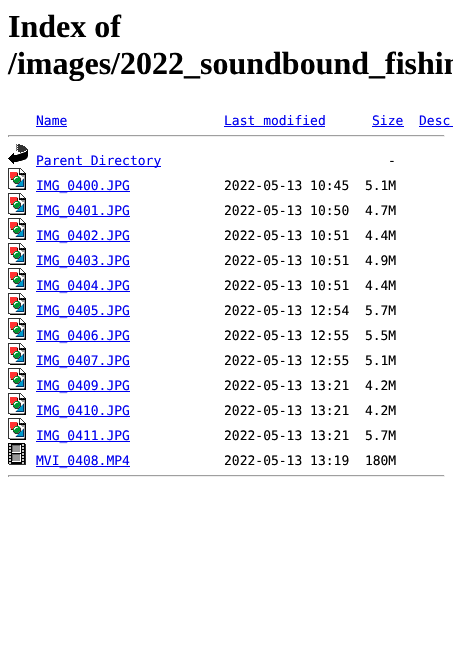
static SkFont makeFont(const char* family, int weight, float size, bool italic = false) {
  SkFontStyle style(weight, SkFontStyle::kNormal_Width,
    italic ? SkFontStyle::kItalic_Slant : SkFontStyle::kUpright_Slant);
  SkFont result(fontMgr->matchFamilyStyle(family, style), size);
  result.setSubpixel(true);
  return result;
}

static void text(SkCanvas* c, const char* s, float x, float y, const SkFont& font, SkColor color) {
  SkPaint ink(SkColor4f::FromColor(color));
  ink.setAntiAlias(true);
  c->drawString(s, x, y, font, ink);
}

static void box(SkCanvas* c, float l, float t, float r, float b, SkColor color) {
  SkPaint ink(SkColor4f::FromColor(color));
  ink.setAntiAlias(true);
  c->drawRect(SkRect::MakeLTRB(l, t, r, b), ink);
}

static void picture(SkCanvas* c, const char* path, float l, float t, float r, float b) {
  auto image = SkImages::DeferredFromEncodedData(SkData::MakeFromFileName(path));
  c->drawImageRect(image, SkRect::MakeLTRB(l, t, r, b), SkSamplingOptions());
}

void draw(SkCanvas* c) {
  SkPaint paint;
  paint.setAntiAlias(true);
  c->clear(0xffffffff);
  SkFont face1 = makeFont("Liberation Serif", 700, 32);
  text(c, "Index of", 8, 37, face1, 0xff000000);
  text(c, "/images/2022_soundbound_fishin", 8, 74, face1, 0xff000000);
  SkFont face2 = makeFont("DejaVu Sans Mono", 400, 13);
  text(c, "Name", 36, 125, face2, 0xff0000ee);
  box(c, 36, 126, 67, 127, 0xff0000ee);
  text(c, "Last modified", 224, 125, face2, 0xff0000ee);
  box(c, 224, 126, 325, 127, 0xff0000ee);
  text(c, "Size", 372, 125, face2, 0xff0000ee);
  box(c, 372, 126, 404, 127, 0xff0000ee);
  text(c, "Desc", 419, 125, face2, 0xff0000ee);
  box(c, 419, 126, 453, 127, 0xff0000ee);
  box(c, 8, 135, 445, 136, 0xff9f9f9f);
  box(c, 444, 135, 445, 137, 0xffeeeeee);
  box(c, 8, 136, 445, 137, 0xffeeeeee);
  box(c, 8, 135, 9, 137, 0xff9f9f9f);
  picture(c, "img_01.png", 8, 144, 28, 164);
  box(c, 36, 166, 161, 167, 0xff0000ee);
  text(c, "Parent Directory", 36, 165, face2, 0xff0000ee);
  text(c, "-", 388, 165, face2, 0xff000000);
  picture(c, "img_02.png", 8, 168, 26, 190);
  box(c, 36, 191, 130, 192, 0xff0000ee);
  text(c, "IMG_0400.JPG", 36, 190, face2, 0xff0000ee);
  text(c, "2022-05-13 10:45  5.1M", 224, 190, face2, 0xff000000);
  picture(c, "img_02.png", 8, 193, 26, 215);
  box(c, 36, 216, 130, 217, 0xff0000ee);
  text(c, "IMG_0401.JPG", 36, 215, face2, 0xff0000ee);
  text(c, "2022-05-13 10:50  4.7M", 224, 215, face2, 0xff000000);
  picture(c, "img_02.png", 8, 218, 26, 240);
  box(c, 36, 241, 130, 242, 0xff0000ee);
  text(c, "IMG_0402.JPG", 36, 240, face2, 0xff0000ee);
  text(c, "2022-05-13 10:51  4.4M", 224, 240, face2, 0xff000000);
  picture(c, "img_02.png", 8, 243, 26, 265);
  box(c, 36, 266, 130, 267, 0xff0000ee);
  text(c, "IMG_0403.JPG", 36, 265, face2, 0xff0000ee);
  text(c, "2022-05-13 10:51  4.9M", 224, 265, face2, 0xff000000);
  picture(c, "img_02.png", 8, 268, 26, 290);
  box(c, 36, 291, 130, 292, 0xff0000ee);
  text(c, "IMG_0404.JPG", 36, 290, face2, 0xff0000ee);
  text(c, "2022-05-13 10:51  4.4M", 224, 290, face2, 0xff000000);
  picture(c, "img_02.png", 8, 293, 26, 315);
  box(c, 36, 316, 130, 317, 0xff0000ee);
  text(c, "IMG_0405.JPG", 36, 315, face2, 0xff0000ee);
  text(c, "2022-05-13 12:54  5.7M", 224, 315, face2, 0xff000000);
  picture(c, "img_02.png", 8, 318, 26, 340);
  box(c, 36, 341, 130, 342, 0xff0000ee);
  text(c, "IMG_0406.JPG", 36, 340, face2, 0xff0000ee);
  text(c, "2022-05-13 12:55  5.5M", 224, 340, face2, 0xff000000);
  picture(c, "img_02.png", 8, 343, 26, 365);
  box(c, 36, 366, 130, 367, 0xff0000ee);
  text(c, "IMG_0407.JPG", 36, 365, face2, 0xff0000ee);
  text(c, "2022-05-13 12:55  5.1M", 224, 365, face2, 0xff000000);
  picture(c, "img_02.png", 8, 368, 26, 390);
  box(c, 36, 391, 130, 392, 0xff0000ee);
  text(c, "IMG_0409.JPG", 36, 390, face2, 0xff0000ee);
  text(c, "2022-05-13 13:21  4.2M", 224, 390, face2, 0xff000000);
  picture(c, "img_02.png", 8, 393, 26, 415);
  box(c, 36, 416, 130, 417, 0xff0000ee);
  text(c, "IMG_0410.JPG", 36, 415, face2, 0xff0000ee);
  text(c, "2022-05-13 13:21  4.2M", 224, 415, face2, 0xff000000);
  picture(c, "img_02.png", 8, 418, 26, 440);
  box(c, 36, 441, 130, 442, 0xff0000ee);
  text(c, "IMG_0411.JPG", 36, 440, face2, 0xff0000ee);
  text(c, "2022-05-13 13:21  5.7M", 224, 440, face2, 0xff000000);
  picture(c, "img_03.png", 8, 443, 26, 465);
  box(c, 36, 466, 130, 467, 0xff0000ee);
  text(c, "MVI_0408.MP4", 36, 465, face2, 0xff0000ee);
  text(c, "2022-05-13 13:19  180M", 224, 465, face2, 0xff000000);
  box(c, 8, 475, 445, 476, 0xff9f9f9f);
  box(c, 444, 475, 445, 477, 0xffeeeeee);
  box(c, 8, 476, 445, 477, 0xffeeeeee);
  box(c, 8, 475, 9, 477, 0xff9f9f9f);
}
